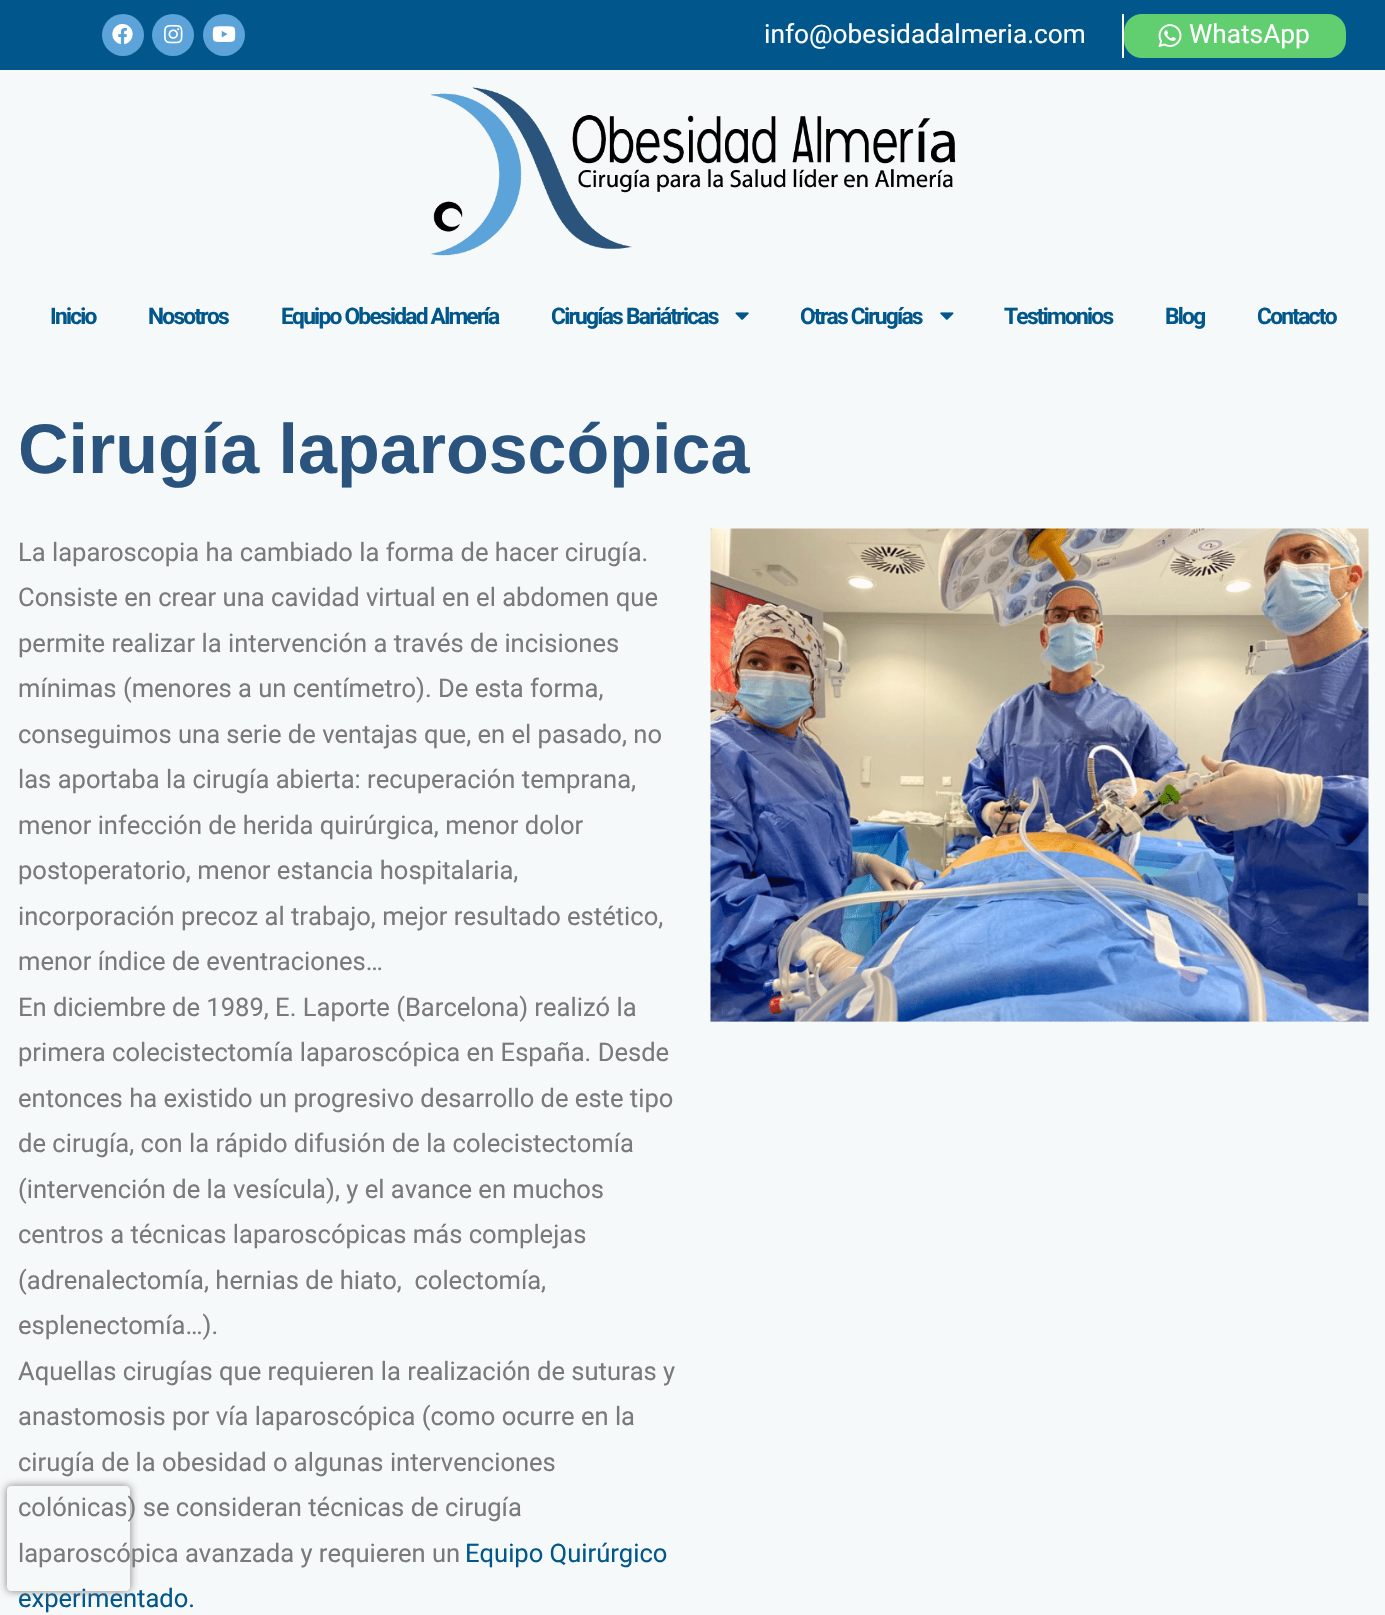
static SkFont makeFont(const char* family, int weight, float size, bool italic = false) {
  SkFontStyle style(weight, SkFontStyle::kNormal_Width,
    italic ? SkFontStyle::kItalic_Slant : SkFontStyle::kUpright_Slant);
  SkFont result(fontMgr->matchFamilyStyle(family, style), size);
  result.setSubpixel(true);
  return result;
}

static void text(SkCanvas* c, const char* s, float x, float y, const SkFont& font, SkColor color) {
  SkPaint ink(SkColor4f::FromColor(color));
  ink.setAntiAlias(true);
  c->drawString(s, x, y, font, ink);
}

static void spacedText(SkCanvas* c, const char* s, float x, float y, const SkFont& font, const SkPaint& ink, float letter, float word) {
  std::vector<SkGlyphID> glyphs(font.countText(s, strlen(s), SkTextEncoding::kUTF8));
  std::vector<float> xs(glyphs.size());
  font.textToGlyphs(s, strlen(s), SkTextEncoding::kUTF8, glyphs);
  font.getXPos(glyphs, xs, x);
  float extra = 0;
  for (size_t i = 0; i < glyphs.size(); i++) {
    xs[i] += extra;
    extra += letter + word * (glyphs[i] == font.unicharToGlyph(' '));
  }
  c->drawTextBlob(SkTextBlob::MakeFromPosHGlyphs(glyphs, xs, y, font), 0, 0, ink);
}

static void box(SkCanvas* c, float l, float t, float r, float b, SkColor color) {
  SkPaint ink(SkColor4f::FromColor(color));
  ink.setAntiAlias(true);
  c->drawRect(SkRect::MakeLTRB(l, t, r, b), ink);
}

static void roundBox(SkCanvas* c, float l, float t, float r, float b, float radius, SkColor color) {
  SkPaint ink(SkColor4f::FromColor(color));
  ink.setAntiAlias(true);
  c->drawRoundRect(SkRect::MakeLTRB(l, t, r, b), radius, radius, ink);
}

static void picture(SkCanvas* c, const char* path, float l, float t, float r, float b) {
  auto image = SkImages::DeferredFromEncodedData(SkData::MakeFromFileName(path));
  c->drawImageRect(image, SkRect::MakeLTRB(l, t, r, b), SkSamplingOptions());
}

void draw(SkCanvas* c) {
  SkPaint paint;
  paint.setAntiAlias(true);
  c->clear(0xfff6f9f9);
  box(c, 0, 0, 1385, 70, 0xff01578c);
  paint.setColor(0xff5ba3d8);
  c->drawCircle(123, 35, 21, paint);
  picture(c, "img_01.png", 112, 23, 133, 45);
  c->drawCircle(173, 35, 21, paint);
  picture(c, "img_02.png", 164, 24, 183, 44);
  c->drawCircle(224, 35, 21, paint);
  picture(c, "img_03.png", 212, 26, 236, 42);
  box(c, 1122, 14, 1124, 58, 0xffffffff);
  SkFont face1 = makeFont("Roboto", 400, 26.25f);
  text(c, "info@obesidadalmeria.com", 764, 43, face1, 0xffffffff);
  roundBox(c, 1124, 14, 1346, 58, 18, 0xff61ce70);
  picture(c, "img_04.png", 1158, 24, 1182, 48);
  text(c, "WhatsApp", 1189, 43, face1, 0xffffffff);
  picture(c, "img_05.png", 430, 87, 956, 256);
  SkFont face2 = makeFont("Roboto", 700, 22.75f);
  paint.setColor(0xff01578c);
  spacedText(c, "Inicio", 50, 324, face2, paint, -1.75f, 0);
  spacedText(c, "Nosotros", 148, 324, face2, paint, -1.75f, 0);
  spacedText(c, "Equipo Obesidad Almería", 281, 324, face2, paint, -1.75f, 0);
  spacedText(c, "Cirugías Bariátricas", 551, 324, face2, paint, -1.75f, 0);
  picture(c, "img_06.png", 735, 312, 749, 320);
  spacedText(c, "Otras Cirugías", 800, 324, face2, paint, -1.75f, 0);
  picture(c, "img_07.png", 940, 312, 954, 320);
  spacedText(c, "Testimonios", 1004, 324, face2, paint, -1.75f, 0);
  spacedText(c, "Blog", 1165, 324, face2, paint, -1.75f, 0);
  spacedText(c, "Contacto", 1257, 324, face2, paint, -1.75f, 0);
  SkFont face3 = makeFont("Liberation Sans", 700, 70);
  text(c, "Cirugía laparoscópica", 18, 473, face3, 0xff2a547e);
  SkFont face4 = makeFont("Roboto", 400, 25.55f);
  text(c, "La laparoscopia ha cambiado la forma de hacer cirugía.", 18, 561, face4, 0xff7a7a7a);
  text(c, "Consiste en crear una cavidad virtual en el abdomen que", 18, 606, face4, 0xff7a7a7a);
  text(c, "permite realizar la intervención a través de incisiones", 18, 652, face4, 0xff7a7a7a);
  text(c, "mínimas (menores a un centímetro). De esta forma,", 18, 697, face4, 0xff7a7a7a);
  text(c, "conseguimos una serie de ventajas que, en el pasado, no", 18, 743, face4, 0xff7a7a7a);
  text(c, "las aportaba la cirugía abierta: recuperación temprana,", 18, 788, face4, 0xff7a7a7a);
  text(c, "menor infección de herida quirúrgica, menor dolor", 18, 834, face4, 0xff7a7a7a);
  text(c, "postoperatorio, menor estancia hospitalaria,", 18, 879, face4, 0xff7a7a7a);
  text(c, "incorporación precoz al trabajo, mejor resultado estético,", 18, 925, face4, 0xff7a7a7a);
  text(c, "menor índice de eventraciones…", 18, 970, face4, 0xff7a7a7a);
  text(c, "En diciembre de 1989, E. Laporte (Barcelona) realizó la", 18, 1016, face4, 0xff7a7a7a);
  text(c, "primera colecistectomía laparoscópica en España. Desde", 18, 1061, face4, 0xff7a7a7a);
  text(c, "entonces ha existido un progresivo desarrollo de este tipo", 18, 1107, face4, 0xff7a7a7a);
  text(c, "de cirugía, con la rápido difusión de la colecistectomía", 18, 1152, face4, 0xff7a7a7a);
  text(c, "(intervención de la vesícula), y el avance en muchos", 18, 1198, face4, 0xff7a7a7a);
  text(c, "centros a técnicas laparoscópicas más complejas", 18, 1243, face4, 0xff7a7a7a);
  text(c, "(adrenalectomía, hernias de hiato,  colectomía,", 18, 1289, face4, 0xff7a7a7a);
  text(c, "esplenectomía…).", 18, 1334, face4, 0xff7a7a7a);
  text(c, "Aquellas cirugías que requieren la realización de suturas y", 18, 1380, face4, 0xff7a7a7a);
  text(c, "anastomosis por vía laparoscópica (como ocurre en la", 18, 1425, face4, 0xff7a7a7a);
  text(c, "cirugía de la obesidad o algunas intervenciones", 18, 1471, face4, 0xff7a7a7a);
  text(c, "colónicas) se consideran técnicas de cirugía", 18, 1516, face4, 0xff7a7a7a);
  text(c, "laparoscópica avanzada y requieren un", 18, 1562, face4, 0xff7a7a7a);
  text(c, "Equipo Quirúrgico", 465, 1562, face4, 0xff01578c);
  text(c, "experimentado.", 18, 1607, face4, 0xff01578c);
  picture(c, "img_08.png", 710, 528, 1369, 1022);
  c->save();
  c->clipPath(SkPathBuilder(SkPathFillType::kEvenOdd).moveTo(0, 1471).lineTo(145, 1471).lineTo(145, 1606).lineTo(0, 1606).close().moveTo(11, 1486).lineTo(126, 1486).cubicTo(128, 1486, 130, 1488, 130, 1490).lineTo(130, 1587).cubicTo(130, 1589, 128, 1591, 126, 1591).lineTo(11, 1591).cubicTo(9, 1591, 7, 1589, 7, 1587).lineTo(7, 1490).cubicTo(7, 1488, 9, 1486, 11, 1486).close().detach(), true);
  paint.setColor(0xff808080);
  paint.setMaskFilter(SkMaskFilter::MakeBlur(kNormal_SkBlurStyle, 4.5f));
  c->drawRoundRect(SkRect::MakeLTRB(7, 1486, 130, 1591), 4, 4, paint);
  paint.setMaskFilter(nullptr);
  c->restore();
}
